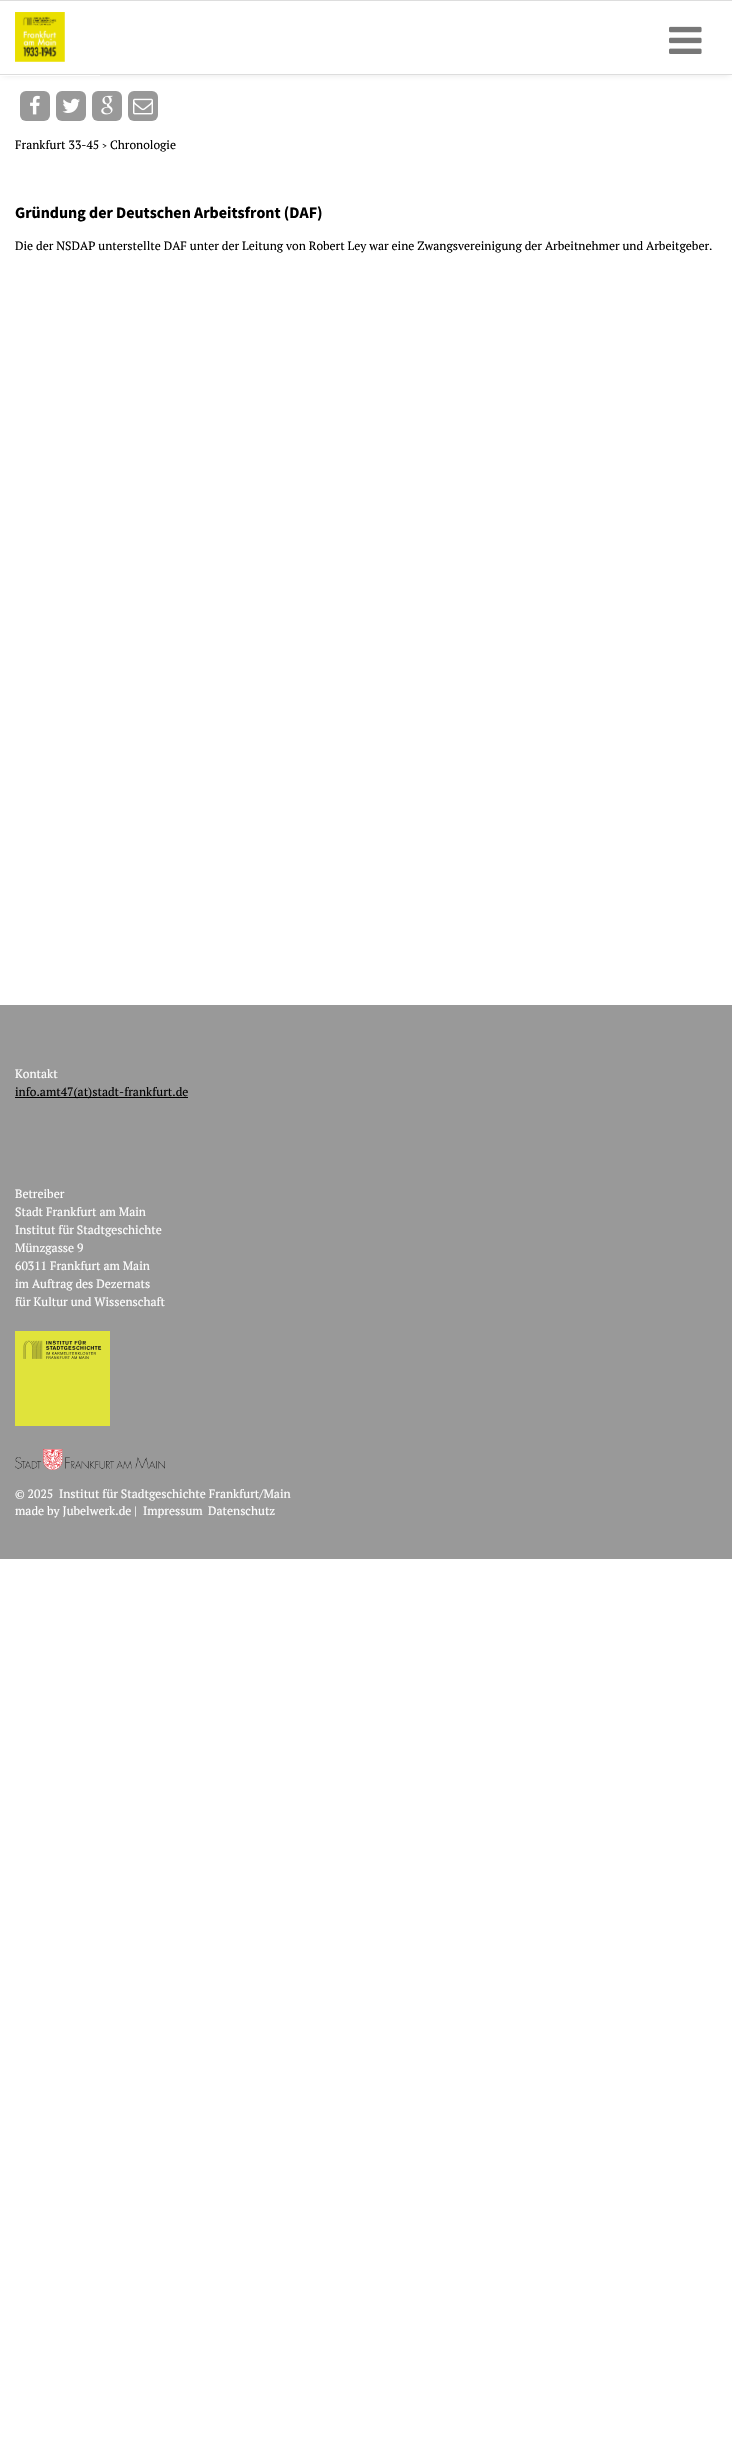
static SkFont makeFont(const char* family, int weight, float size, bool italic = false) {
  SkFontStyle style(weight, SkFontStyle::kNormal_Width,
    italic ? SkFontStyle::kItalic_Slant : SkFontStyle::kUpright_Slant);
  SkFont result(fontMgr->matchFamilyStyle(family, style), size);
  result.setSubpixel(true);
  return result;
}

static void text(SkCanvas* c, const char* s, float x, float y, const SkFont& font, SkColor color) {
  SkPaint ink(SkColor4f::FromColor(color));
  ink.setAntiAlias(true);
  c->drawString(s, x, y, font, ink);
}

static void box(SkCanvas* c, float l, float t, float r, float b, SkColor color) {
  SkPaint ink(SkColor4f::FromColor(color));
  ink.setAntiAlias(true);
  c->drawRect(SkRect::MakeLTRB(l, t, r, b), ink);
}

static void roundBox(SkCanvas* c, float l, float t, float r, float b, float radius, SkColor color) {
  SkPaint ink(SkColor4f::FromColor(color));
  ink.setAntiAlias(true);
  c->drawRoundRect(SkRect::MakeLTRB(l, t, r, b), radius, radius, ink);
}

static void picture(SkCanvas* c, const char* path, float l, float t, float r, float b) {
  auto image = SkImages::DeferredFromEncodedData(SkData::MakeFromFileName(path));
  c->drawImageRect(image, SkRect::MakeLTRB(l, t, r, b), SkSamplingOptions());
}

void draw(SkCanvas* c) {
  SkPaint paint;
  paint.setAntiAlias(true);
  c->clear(0xffffffff);
  c->save();
  c->clipRect(SkRect::MakeLTRB(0, 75, 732, 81));
  paint.setColor(0xffececec);
  paint.setMaskFilter(SkMaskFilter::MakeBlur(kNormal_SkBlurStyle, 2.5f));
  c->drawRect(SkRect::MakeLTRB(3, 7, 729, 76), paint);
  paint.setMaskFilter(nullptr);
  c->restore();
  box(c, 0, 0, 732, 1, 0xffdddddd);
  box(c, 0, 74, 732, 75, 0xffdddddd);
  picture(c, "img_01.png", 15, 12, 65, 62);
  picture(c, "img_02.png", 669, 26, 702, 54);
  box(c, 0, 75, 100, 76, 0xffffffff);
  roundBox(c, 20, 91, 50, 121, 6, 0xff999999);
  picture(c, "img_03.png", 30, 95, 40, 115);
  roundBox(c, 56, 91, 86, 121, 6, 0xff999999);
  picture(c, "img_04.png", 62, 98, 80, 113);
  roundBox(c, 92, 91, 122, 121, 6, 0xff999999);
  picture(c, "img_05.png", 101, 95, 113, 115);
  roundBox(c, 128, 91, 158, 121, 6, 0xff999999);
  picture(c, "img_06.png", 133, 98, 153, 115);
  SkFont face1 = makeFont("PT Serif", 400, 12);
  text(c, "Frankfurt 33-45", 15, 149, face1, 0xff000000);
  SkFont face2 = makeFont("PT Serif", 400, 9);
  text(c, ">", 102, 149, face2, 0xff000000);
  text(c, "Chronologie", 110, 149, face1, 0xff000000);
  SkFont face3 = makeFont("Source Sans Pro", 700, 16);
  text(c, "Gründung der Deutschen Arbeitsfront (DAF)", 15, 218, face3, 0xff000000);
  text(c, "Die der NSDAP unterstellte DAF unter der Leitung von Robert Ley war eine Zwangsvereinigung der Arbeitnehmer und Arbeitgeber.", 15, 250, face1, 0xff000000);
  box(c, 0, 1005, 732, 1559, 0xff999999);
  text(c, "Kontakt", 15, 1078, face1, 0xffffffff);
  box(c, 15, 1097, 188, 1098, 0xff000000);
  text(c, "info.amt47(at)stadt-frankfurt.de", 15, 1096, face1, 0xff000000);
  text(c, "Betreiber", 15, 1198, face1, 0xffffffff);
  text(c, "Stadt Frankfurt am Main", 15, 1216, face1, 0xffffffff);
  text(c, "Institut für Stadtgeschichte", 15, 1234, face1, 0xffffffff);
  text(c, "Münzgasse 9", 15, 1252, face1, 0xffffffff);
  text(c, "60311 Frankfurt am Main", 15, 1270, face1, 0xffffffff);
  text(c, "im Auftrag des Dezernats", 15, 1288, face1, 0xffffffff);
  text(c, "für Kultur und Wissenschaft", 15, 1306, face1, 0xffffffff);
  picture(c, "img_07.png", 15, 1331, 110, 1426);
  picture(c, "img_08.png", 15, 1449, 165, 1470);
  text(c, "© 2025  Institut für Stadtgeschichte Frankfurt/Main", 15, 1498, face1, 0xffffffff);
  text(c, "made by Jubelwerk.de |", 15, 1515, face1, 0xffffffff);
  text(c, "Impressum", 143, 1515, face1, 0xffffffff);
  text(c, "Datenschutz", 208, 1515, face1, 0xffffffff);
}
